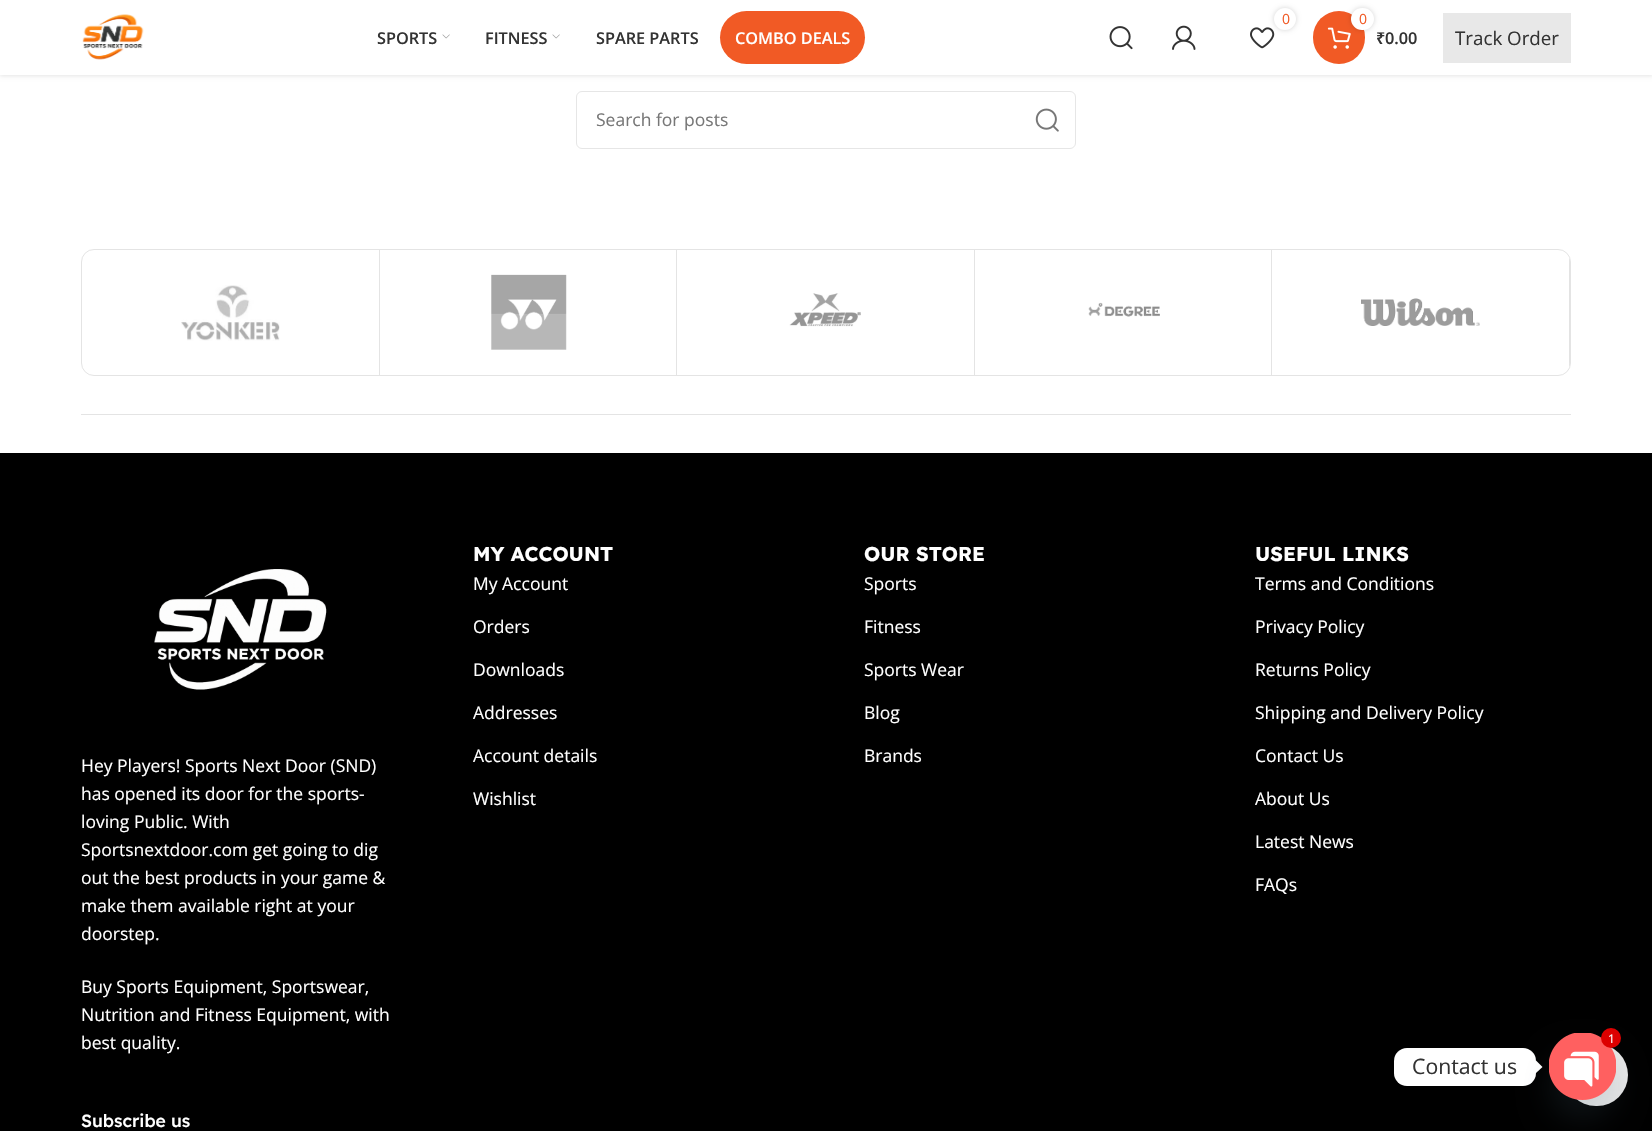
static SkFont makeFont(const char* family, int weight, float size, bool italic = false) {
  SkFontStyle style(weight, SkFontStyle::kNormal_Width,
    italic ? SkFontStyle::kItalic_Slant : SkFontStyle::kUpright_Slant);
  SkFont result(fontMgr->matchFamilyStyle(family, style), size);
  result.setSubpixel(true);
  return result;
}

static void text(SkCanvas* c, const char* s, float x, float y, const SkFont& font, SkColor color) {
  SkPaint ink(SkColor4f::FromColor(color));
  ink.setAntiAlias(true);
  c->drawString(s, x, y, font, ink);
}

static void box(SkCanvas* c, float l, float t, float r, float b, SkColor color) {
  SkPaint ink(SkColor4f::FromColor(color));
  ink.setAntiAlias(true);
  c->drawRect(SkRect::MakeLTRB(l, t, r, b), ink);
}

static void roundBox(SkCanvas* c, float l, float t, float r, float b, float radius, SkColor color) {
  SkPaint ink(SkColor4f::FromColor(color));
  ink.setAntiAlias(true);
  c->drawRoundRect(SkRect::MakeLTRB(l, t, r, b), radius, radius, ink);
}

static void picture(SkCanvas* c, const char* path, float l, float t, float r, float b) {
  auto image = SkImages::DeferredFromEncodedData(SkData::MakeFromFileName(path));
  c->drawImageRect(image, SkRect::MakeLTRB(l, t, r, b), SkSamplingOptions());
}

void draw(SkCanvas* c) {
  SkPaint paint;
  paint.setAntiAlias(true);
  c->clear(0xffffffff);
  paint.setColor(0x1a000000);
  paint.setMaskFilter(SkMaskFilter::MakeBlur(kNormal_SkBlurStyle, 2));
  c->drawRect(SkRect::MakeLTRB(0, 1, 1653, 76), paint);
  paint.setMaskFilter(nullptr);
  box(c, 0, 0, 1652, 75, 0xffffffff);
  picture(c, "img_01.png", 82, 14, 144, 60);
  SkFont face1 = makeFont("Open Sans", 600, 16.25f);
  text(c, "SPORTS", 377, 44, face1, 0xff333333);
  picture(c, "img_02.png", 442, 34, 450, 39);
  text(c, "FITNESS", 485, 44, face1, 0xff333333);
  picture(c, "img_02.png", 552, 34, 560, 39);
  text(c, "SPARE PARTS", 596, 44, face1, 0xff333333);
  roundBox(c, 720, 11, 865, 64, 26.5f, 0xfff15a25);
  text(c, "COMBO DEALS", 735, 44, face1, 0xffffffff);
  picture(c, "img_03.png", 1109, 26, 1133, 50);
  picture(c, "img_04.png", 1172, 25, 1196, 50);
  picture(c, "img_05.png", 1250, 27, 1275, 49);
  paint.setColor(0x2b000000);
  paint.setMaskFilter(SkMaskFilter::MakeBlur(kNormal_SkBlurStyle, 2.5f));
  c->drawRoundRect(SkRect::MakeLTRB(1274, 8, 1296, 30), 11, 11, paint);
  paint.setMaskFilter(nullptr);
  paint.setColor(0xffffffff);
  c->drawCircle(1285, 19, 11, paint);
  SkFont face2 = makeFont("Open Sans", 400, 14);
  text(c, "0", 1282, 24, face2, 0xfff15a25);
  roundBox(c, 1313, 11, 1365, 64, 26, 0xfff15a25);
  picture(c, "img_06.png", 1327, 27, 1351, 49);
  paint.setColor(0x2b000000);
  paint.setMaskFilter(SkMaskFilter::MakeBlur(kNormal_SkBlurStyle, 2.5f));
  c->drawRoundRect(SkRect::MakeLTRB(1351, 8, 1374, 30), 11, 11, paint);
  paint.setMaskFilter(nullptr);
  roundBox(c, 1351, 8, 1374, 30, 11, 0xffffffff);
  text(c, "0", 1359, 24, face2, 0xfff15a25);
  SkFont face3 = makeFont("Noto Sans", 600, 16.25f);
  text(c, "₹", 1376, 44, face3, 0xff333333);
  text(c, "0.00", 1385, 44, face1, 0xff333333);
  box(c, 1443, 13, 1571, 63, 0xffe8e8e8);
  SkFont face4 = makeFont("Open Sans", 400, 18.75f);
  text(c, "Track Order", 1455, 45, face4, 0xff333333);
  paint.setStyle(SkPaint::kStroke_Style);
  paint.setStrokeWidth(1);
  paint.setColor(0xffe6e6e6);
  c->drawRoundRect(SkRect::MakeLTRB(576.5f, 91.5f, 1075.5f, 148.5f), 5.5f, 5.5f, paint);
  SkFont face5 = makeFont("Open Sans", 400, 17.5f);
  text(c, "Search for posts", 596, 126, face5, 0xff777777);
  picture(c, "img_07.png", 1035, 108, 1059, 132);
  box(c, 81, 414, 1571, 415, 0xffe4e4e4);
  paint.setColor(0xffe4e4e4);
  c->drawRoundRect(SkRect::MakeLTRB(81.5f, 249.5f, 1570.5f, 375.5f), 12.5f, 12.5f, paint);
  box(c, 379, 250, 380, 375, 0xffe4e4e4);
  picture(c, "img_08.png", 181, 285, 280, 341);
  box(c, 676, 250, 677, 375, 0xffe4e4e4);
  picture(c, "img_09.png", 491, 274, 567, 350);
  box(c, 974, 250, 975, 375, 0xffe4e4e4);
  picture(c, "img_10.png", 789, 293, 861, 327);
  box(c, 1271, 250, 1272, 375, 0xffe4e4e4);
  picture(c, "img_11.png", 1088, 302, 1160, 317);
  c->save();
  c->clipPath(SkPathBuilder().moveTo(96, 250).lineTo(1557, 250).cubicTo(1564, 250, 1570, 256, 1570, 263).lineTo(1570, 362).cubicTo(1570, 369, 1564, 375, 1557, 375).lineTo(96, 375).cubicTo(89, 375, 83, 369, 83, 362).lineTo(83, 263).cubicTo(83, 256, 89, 250, 96, 250).close().detach(), true);
  box(c, 1569, 259, 1570, 366, 0x1c000000);
  c->restore();
  picture(c, "img_12.png", 1361, 298, 1480, 326);
  box(c, 0, 453, 1652, 1131, 0xff000000);
  SkFont face6 = makeFont("Lexend Deca", 700, 20);
  text(c, "MY ACCOUNT", 473, 561, face6, 0xffffffff);
  text(c, "My Account", 473, 590, face5, 0xffffffff);
  text(c, "Orders", 473, 633, face5, 0xffffffff);
  text(c, "Downloads", 473, 676, face5, 0xffffffff);
  text(c, "Addresses", 473, 719, face5, 0xffffffff);
  text(c, "Account details", 473, 762, face5, 0xffffffff);
  text(c, "Wishlist", 473, 805, face5, 0xffffffff);
  text(c, "OUR STORE", 864, 561, face6, 0xffffffff);
  text(c, "Sports", 864, 590, face5, 0xffffffff);
  text(c, "Fitness", 864, 633, face5, 0xffffffff);
  text(c, "Sports Wear", 864, 676, face5, 0xffffffff);
  text(c, "Blog", 864, 719, face5, 0xffffffff);
  text(c, "Brands", 864, 762, face5, 0xffffffff);
  text(c, "USEFUL LINKS", 1255, 561, face6, 0xffffffff);
  text(c, "Terms and Conditions", 1255, 590, face5, 0xffffffff);
  text(c, "Privacy Policy", 1255, 633, face5, 0xffffffff);
  text(c, "Returns Policy", 1255, 676, face5, 0xffffffff);
  text(c, "Shipping and Delivery Policy", 1255, 719, face5, 0xffffffff);
  text(c, "Contact Us", 1255, 762, face5, 0xffffffff);
  text(c, "About Us", 1255, 805, face5, 0xffffffff);
  text(c, "Latest News", 1255, 848, face5, 0xffffffff);
  text(c, "FAQs", 1255, 891, face5, 0xffffffff);
  picture(c, "img_13.png", 154, 569, 327, 690);
  text(c, "Hey Players! Sports Next Door (SND)", 81, 772, face5, 0xffffffff);
  text(c, "has opened its door for the sports-", 81, 800, face5, 0xffffffff);
  text(c, "loving Public. With", 81, 828, face5, 0xffffffff);
  text(c, "Sportsnextdoor.com get going to dig", 81, 856, face5, 0xffffffff);
  text(c, "out the best products in your game &", 81, 884, face5, 0xffffffff);
  text(c, "make them available right at your", 81, 912, face5, 0xffffffff);
  text(c, "doorstep.", 81, 940, face5, 0xffffffff);
  text(c, "Buy Sports Equipment, Sportswear,", 81, 993, face5, 0xffffffff);
  text(c, "Nutrition and Fitness Equipment, with", 81, 1021, face5, 0xffffffff);
  text(c, "best quality.", 81, 1049, face5, 0xffffffff);
  SkFont face7 = makeFont("Lexend Deca", 500, 17.5f);
  text(c, "Subscribe us", 81, 1127, face7, 0xffffffff);
  roundBox(c, 1394, 1048, 1536, 1086, 13, 0xffffffff);
  paint.setStyle(SkPaint::kFill_Style);
  paint.setColor(0xffffffff);
  c->drawPath(SkPathBuilder().moveTo(1536, 1073).lineTo(1536, 1060.5f).lineTo(1542.5f, 1067).close().detach(), paint);
  roundBox(c, 1565, 1044, 1628, 1106, 31, 0xffe6e6e6);
  paint.setColor(0x2949687e);
  paint.setMaskFilter(SkMaskFilter::MakeBlur(kNormal_SkBlurStyle, 15));
  c->drawRoundRect(SkRect::MakeLTRB(1549, 1053, 1616, 1120), 33.5f, 33.5f, paint);
  paint.setMaskFilter(nullptr);
  picture(c, "img_14.png", 1549, 1033, 1616, 1100);
  paint.setColor(0xffdd0000);
  c->drawCircle(1611, 1038, 10, paint);
  SkFont face8 = makeFont("Open Sans", 400, 12);
  text(c, "1", 1608, 1043, face8, 0xffffffff);
  SkFont face9 = makeFont("Open Sans", 400, 21.25f);
  text(c, "Contact us", 1412, 1074, face9, 0xff333333);
}
